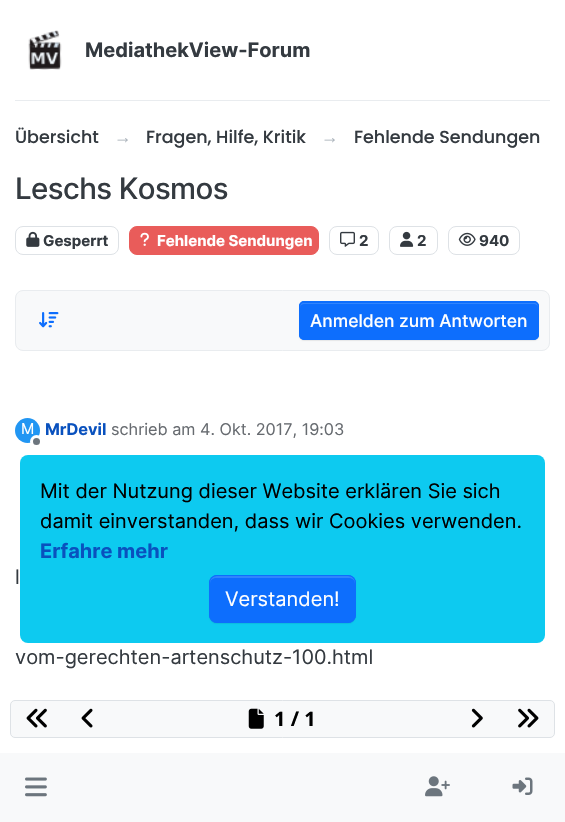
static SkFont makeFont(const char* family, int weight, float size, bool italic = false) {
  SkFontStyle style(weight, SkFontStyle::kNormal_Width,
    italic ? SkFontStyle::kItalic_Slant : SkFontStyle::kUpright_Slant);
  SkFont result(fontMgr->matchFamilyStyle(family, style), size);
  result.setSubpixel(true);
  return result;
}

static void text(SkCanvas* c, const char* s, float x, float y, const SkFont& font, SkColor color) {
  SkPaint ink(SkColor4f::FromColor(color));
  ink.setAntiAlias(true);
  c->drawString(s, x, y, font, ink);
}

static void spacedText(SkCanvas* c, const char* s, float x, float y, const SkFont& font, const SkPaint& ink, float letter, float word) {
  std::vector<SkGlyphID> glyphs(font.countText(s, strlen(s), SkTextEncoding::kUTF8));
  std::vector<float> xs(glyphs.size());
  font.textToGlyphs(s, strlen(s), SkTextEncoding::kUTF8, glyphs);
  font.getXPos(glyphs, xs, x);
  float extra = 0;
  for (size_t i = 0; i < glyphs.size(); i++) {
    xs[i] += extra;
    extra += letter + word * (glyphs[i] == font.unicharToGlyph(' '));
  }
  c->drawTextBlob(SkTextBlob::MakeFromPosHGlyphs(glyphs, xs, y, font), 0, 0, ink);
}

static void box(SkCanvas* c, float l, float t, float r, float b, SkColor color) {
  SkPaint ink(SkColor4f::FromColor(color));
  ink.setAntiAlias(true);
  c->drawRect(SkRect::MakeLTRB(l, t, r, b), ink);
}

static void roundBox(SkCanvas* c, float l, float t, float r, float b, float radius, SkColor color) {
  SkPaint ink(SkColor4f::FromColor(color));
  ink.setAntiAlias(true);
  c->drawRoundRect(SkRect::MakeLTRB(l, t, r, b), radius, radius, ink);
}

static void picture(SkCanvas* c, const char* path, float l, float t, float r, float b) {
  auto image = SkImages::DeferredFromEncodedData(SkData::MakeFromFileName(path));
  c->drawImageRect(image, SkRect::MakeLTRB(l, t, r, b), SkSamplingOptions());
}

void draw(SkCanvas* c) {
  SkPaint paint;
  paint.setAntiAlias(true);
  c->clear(0xffffffff);
  box(c, 15, 100, 550, 101, 0xffe9ecef);
  picture(c, "img_01.png", 28, 30, 62, 70);
  SkFont face1 = makeFont("Inter", 700, 20);
  text(c, "MediathekView-Forum", 85, 57, face1, 0xff343a40);
  SkFont face2 = makeFont("Poppins", 500, 17.5f);
  text(c, "Übersicht", 15, 143, face2, 0xff343a40);
  SkFont face3 = makeFont("Liberation Sans", 400, 17.5f);
  text(c, "→", 114, 143, face3, 0xffadb5bd);
  text(c, "Fragen, Hilfe, Kritik", 146, 143, face2, 0xff343a40);
  text(c, "→", 321, 143, face3, 0xffadb5bd);
  text(c, "Fehlende Sendungen", 354, 143, face2, 0xff343a40);
  SkFont face4 = makeFont("Inter", 500, 29.5f);
  paint.setColor(0xff343a40);
  spacedText(c, "Leschs Kosmos", 15, 199, face4, paint, -0.6f, 0);
  paint.setStyle(SkPaint::kStroke_Style);
  paint.setStrokeWidth(1);
  paint.setColor(0xffdee2e6);
  c->drawRoundRect(SkRect::MakeLTRB(15.5f, 226.5f, 118.5f, 254.5f), 7.5f, 7.5f, paint);
  picture(c, "img_02.png", 26, 231, 40, 247);
  SkFont face5 = makeFont("Inter", 700, 15);
  text(c, "Gesperrt", 43, 246, face5, 0xff343a40);
  paint.setStyle(SkPaint::kFill_Style);
  paint.setColor(0xffe95c5a);
  c->drawRoundRect(SkRect::MakeLTRB(129.5f, 226.5f, 318.5f, 254.5f), 7.5f, 7.5f, paint);
  paint.setStyle(SkPaint::kStroke_Style);
  c->drawRoundRect(SkRect::MakeLTRB(129.5f, 226.5f, 318.5f, 254.5f), 7.5f, 7.5f, paint);
  picture(c, "img_03.png", 140, 232, 149, 246);
  text(c, "Fehlende Sendungen", 157, 246, face5, 0xffffffff);
  paint.setColor(0xffdee2e6);
  c->drawRoundRect(SkRect::MakeLTRB(329.5f, 226.5f, 378.5f, 254.5f), 7.5f, 7.5f, paint);
  picture(c, "img_04.png", 340, 231, 355, 247);
  text(c, "2", 359, 246, face5, 0xff343a40);
  c->drawRoundRect(SkRect::MakeLTRB(389.5f, 226.5f, 437.5f, 254.5f), 7.5f, 7.5f, paint);
  picture(c, "img_05.png", 400, 231, 414, 247);
  text(c, "2", 417, 246, face5, 0xff343a40);
  c->drawRoundRect(SkRect::MakeLTRB(448.5f, 226.5f, 519.5f, 254.5f), 7.5f, 7.5f, paint);
  picture(c, "img_06.png", 458, 232, 476, 246);
  text(c, "940", 479, 246, face5, 0xff343a40);
  paint.setStyle(SkPaint::kFill_Style);
  paint.setColor(0xfff8f9fa);
  c->drawRoundRect(SkRect::MakeLTRB(15.5f, 290.5f, 549.5f, 350.5f), 7.5f, 7.5f, paint);
  paint.setStyle(SkPaint::kStroke_Style);
  paint.setColor(0xffe9ecef);
  c->drawRoundRect(SkRect::MakeLTRB(15.5f, 290.5f, 549.5f, 350.5f), 7.5f, 7.5f, paint);
  picture(c, "img_07.png", 39, 312, 59, 328);
  paint.setStyle(SkPaint::kFill_Style);
  paint.setColor(0x12000000);
  paint.setMaskFilter(SkMaskFilter::MakeBlur(kNormal_SkBlurStyle, 0.5f));
  c->drawRoundRect(SkRect::MakeLTRB(299, 303, 539, 341), 5, 5, paint);
  paint.setMaskFilter(nullptr);
  roundBox(c, 299, 301, 539, 340, 5, 0xff0d6efd);
  paint.setColor(0xff3184fd);
  c->drawPath(SkPathBuilder().moveTo(304, 304).lineTo(534, 304).cubicTo(536, 304, 538, 305, 538, 308).cubicTo(538, 305, 537, 303, 534, 303).lineTo(304, 303).cubicTo(301, 303, 300, 305, 300, 308).cubicTo(300, 305, 302, 304, 304, 304).close().detach(), paint);
  paint.setStyle(SkPaint::kStroke_Style);
  paint.setColor(0xff0d6efd);
  c->drawRoundRect(SkRect::MakeLTRB(299.5f, 301.5f, 538.5f, 339.5f), 4.5f, 4.5f, paint);
  SkFont face6 = makeFont("Inter", 500, 17.5f);
  text(c, "Anmelden zum Antworten", 310, 327, face6, 0xffffffff);
  paint.setStyle(SkPaint::kFill_Style);
  paint.setColor(0xff2196f3);
  c->drawCircle(27.5f, 430.5f, 12.5f, paint);
  SkFont face7 = makeFont("Inter", 400, 15);
  text(c, "M", 21, 434, face7, 0xffffffff);
  paint.setColor(0xff6c757d);
  c->drawCircle(36.5f, 441.5f, 5, paint);
  paint.setStyle(SkPaint::kStroke_Style);
  paint.setStrokeWidth(3);
  paint.setColor(0xffffffff);
  c->drawCircle(36.5f, 441.5f, 5, paint);
  SkFont face8 = makeFont("Inter", 700, 16.25f);
  text(c, "MrDevil", 45, 435, face8, 0xff0951be);
  SkFont face9 = makeFont("Inter", 400, 16.25f);
  text(c, "schrieb am 4. Okt. 2017, 19:03", 111, 435, face9, 0xff676b70);
  SkFont face10 = makeFont("Inter", 400, 20);
  text(c, "l", 15, 584, face10, 0xff343a40);
  text(c, "vom-gerechten-artenschutz-100.html", 15, 664, face10, 0xff343a40);
  roundBox(c, 20, 455, 545, 643, 8, 0xff0dcaf0);
  text(c, "Mit der Nutzung dieser Website erklären Sie sich", 40, 498, face10, 0xff000000);
  text(c, "damit einverstanden, dass wir Cookies verwenden.", 40, 528, face10, 0xff000000);
  text(c, "Erfahre mehr", 40, 558, face1, 0xff0951be);
  paint.setStyle(SkPaint::kFill_Style);
  paint.setColor(0x12000000);
  paint.setMaskFilter(SkMaskFilter::MakeBlur(kNormal_SkBlurStyle, 0.5f));
  c->drawRoundRect(SkRect::MakeLTRB(209, 576, 356, 624), 8, 8, paint);
  paint.setMaskFilter(nullptr);
  roundBox(c, 209, 575, 356, 623, 8, 0xff0d6efd);
  paint.setColor(0xff3184fd);
  c->drawPath(SkPathBuilder().moveTo(216, 578).lineTo(349, 578).cubicTo(352, 578, 355, 580, 355, 584).lineTo(355, 582).cubicTo(355, 579, 352, 576, 349, 576).lineTo(216, 576).cubicTo(213, 576, 210, 579, 210, 582).lineTo(210, 584).cubicTo(210, 580, 213, 578, 216, 578).close().detach(), paint);
  paint.setStyle(SkPaint::kStroke_Style);
  paint.setStrokeWidth(1);
  paint.setColor(0xff0d6efd);
  c->drawRoundRect(SkRect::MakeLTRB(209.5f, 575.5f, 355.5f, 622.5f), 7.5f, 7.5f, paint);
  text(c, "Verstanden!", 225, 606, face10, 0xffffffff);
  paint.setStyle(SkPaint::kFill_Style);
  paint.setColor(0xfff8f9fa);
  c->drawRoundRect(SkRect::MakeLTRB(10.5f, 700.5f, 554.5f, 737.5f), 4.5f, 4.5f, paint);
  paint.setStyle(SkPaint::kStroke_Style);
  paint.setColor(0xffdee2e6);
  c->drawRoundRect(SkRect::MakeLTRB(10.5f, 700.5f, 554.5f, 737.5f), 4.5f, 4.5f, paint);
  picture(c, "img_08.png", 26, 708, 47, 728);
  picture(c, "img_09.png", 81, 708, 93, 728);
  picture(c, "img_10.png", 248, 708, 264, 729);
  SkFont face11 = makeFont("Noto Sans", 700, 20);
  text(c, "1 / 1", 274, 726, face11, 0xff000000);
  picture(c, "img_11.png", 471, 708, 483, 728);
  picture(c, "img_12.png", 518, 708, 539, 728);
  box(c, 0, 753, 565, 822, 0xfff8f9fa);
  picture(c, "img_13.png", 25, 777, 47, 797);
  picture(c, "img_14.png", 425, 776, 450, 797);
  picture(c, "img_15.png", 512, 777, 533, 795);
}
